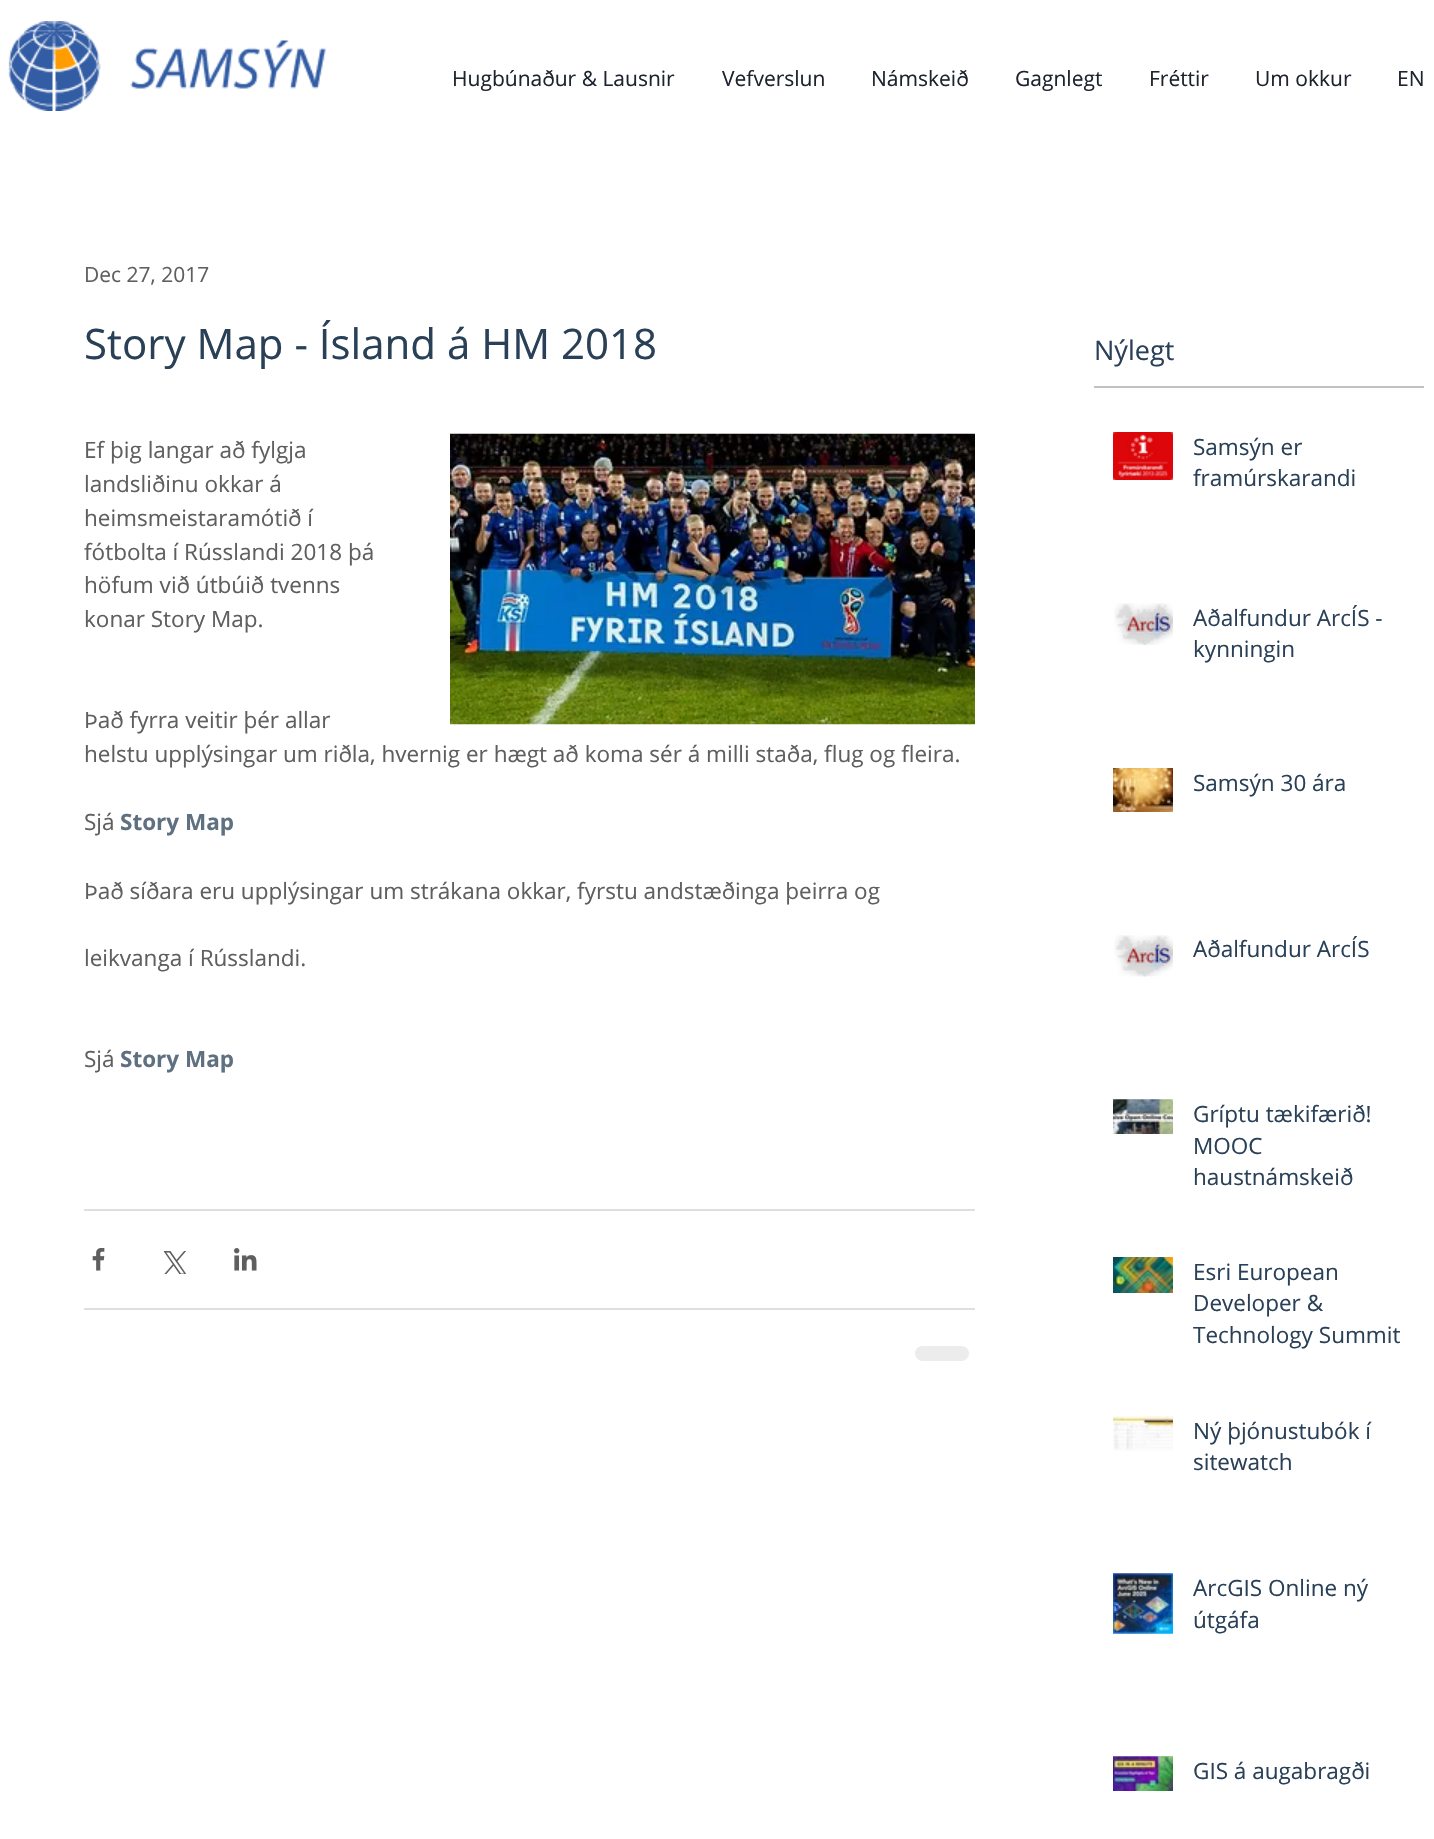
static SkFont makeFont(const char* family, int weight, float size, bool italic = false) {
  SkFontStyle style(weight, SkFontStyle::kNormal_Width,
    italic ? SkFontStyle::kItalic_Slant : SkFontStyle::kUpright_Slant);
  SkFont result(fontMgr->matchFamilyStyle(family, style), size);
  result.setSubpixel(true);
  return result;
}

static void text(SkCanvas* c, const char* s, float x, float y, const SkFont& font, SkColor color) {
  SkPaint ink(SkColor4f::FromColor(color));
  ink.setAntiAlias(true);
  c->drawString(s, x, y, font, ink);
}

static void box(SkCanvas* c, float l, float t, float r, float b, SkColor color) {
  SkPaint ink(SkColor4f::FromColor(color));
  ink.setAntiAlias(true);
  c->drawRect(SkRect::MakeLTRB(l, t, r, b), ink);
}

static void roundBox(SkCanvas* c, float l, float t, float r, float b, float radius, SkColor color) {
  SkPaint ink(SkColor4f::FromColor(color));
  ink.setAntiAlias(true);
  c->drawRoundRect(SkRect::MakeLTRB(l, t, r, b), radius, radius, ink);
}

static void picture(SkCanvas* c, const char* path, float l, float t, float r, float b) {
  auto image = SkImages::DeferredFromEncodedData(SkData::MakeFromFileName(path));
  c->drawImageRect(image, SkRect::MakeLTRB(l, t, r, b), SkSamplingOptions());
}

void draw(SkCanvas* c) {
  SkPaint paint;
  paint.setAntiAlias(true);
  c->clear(0xffffffff);
  picture(c, "img_01.png", 8, 21, 326, 111);
  SkFont face1 = makeFont("Open Sans", 400, 21);
  text(c, "Hugbúnaður & Lausnir", 452, 86, face1, 0xff1e242e);
  text(c, "Vefverslun", 722, 86, face1, 0xff1e242e);
  text(c, "Námskeið", 871, 86, face1, 0xff1e242e);
  text(c, "Gagnlegt", 1015, 86, face1, 0xff1e242e);
  text(c, "Fréttir", 1149, 86, face1, 0xff1e242e);
  text(c, "Um okkur", 1255, 86, face1, 0xff1e242e);
  text(c, "EN", 1397, 86, face1, 0xff1e242e);
  text(c, "Dec 27, 2017", 84, 282, face1, 0xff605e5e);
  SkFont face2 = makeFont("Open Sans", 400, 42);
  text(c, "Story Map - Ísland á HM 2018", 84, 359, face2, 0xff294057);
  picture(c, "img_02.png", 450, 433, 975, 725);
  SkFont face3 = makeFont("Open Sans", 400, 22.5f);
  text(c, "Ef þig langar að fylgja", 84, 458, face3, 0xff605e5e);
  text(c, "landsliðinu okkar á", 84, 492, face3, 0xff605e5e);
  text(c, "heimsmeistaramótið í", 84, 526, face3, 0xff605e5e);
  text(c, "fótbolta í Rússlandi 2018 þá", 84, 560, face3, 0xff605e5e);
  text(c, "höfum við útbúið tvenns", 84, 593, face3, 0xff605e5e);
  text(c, "konar Story Map.", 84, 627, face3, 0xff605e5e);
  text(c, "Það fyrra veitir þér allar", 84, 728, face3, 0xff605e5e);
  text(c, "helstu upplýsingar um riðla, hvernig er hægt að koma sér á milli staða, flug og fleira.", 84, 762, face3, 0xff605e5e);
  text(c, "Sjá", 84, 830, face3, 0xff605e5e);
  SkFont face4 = makeFont("Open Sans", 700, 22.5f);
  text(c, "Story Map", 120, 830, face4, 0xff5f7081);
  text(c, "Það síðara eru upplýsingar um strákana okkar, fyrstu andstæðinga þeirra og", 84, 899, face3, 0xff605e5e);
  text(c, "leikvanga í Rússlandi.", 84, 966, face3, 0xff605e5e);
  text(c, "Sjá", 84, 1067, face3, 0xff605e5e);
  text(c, "Story Map", 120, 1067, face4, 0xff5f7081);
  box(c, 84, 1209, 975, 1211, 0xffdfdfdf);
  picture(c, "img_03.png", 92, 1248, 105, 1271);
  picture(c, "img_04.png", 163, 1251, 186, 1274);
  picture(c, "img_05.png", 234, 1248, 257, 1271);
  box(c, 84, 1308, 975, 1310, 0xffdfdfdf);
  roundBox(c, 915, 1346, 969, 1361, 7.5f, 0xffececec);
  SkFont face5 = makeFont("Open Sans", 400, 27);
  text(c, "Nýlegt", 1094, 360, face5, 0xff294057);
  box(c, 1094, 386, 1424, 388, 0xffc1c1c1);
  picture(c, "img_06.png", 1113, 432, 1173, 480);
  picture(c, "img_07.png", 1113, 432, 1173, 480);
  text(c, "Samsýn er", 1193, 455, face3, 0xff294057);
  text(c, "framúrskarandi", 1193, 486, face3, 0xff294057);
  picture(c, "img_08.png", 1114, 603, 1173, 645);
  picture(c, "img_09.png", 1116, 604, 1173, 645);
  text(c, "Aðalfundur ArcÍS -", 1193, 626, face3, 0xff294057);
  text(c, "kynningin", 1193, 657, face3, 0xff294057);
  picture(c, "img_10.png", 1113, 768, 1173, 812);
  text(c, "Samsýn 30 ára", 1193, 791, face3, 0xff294057);
  picture(c, "img_11.png", 1114, 935, 1173, 977);
  picture(c, "img_12.png", 1116, 936, 1173, 977);
  text(c, "Aðalfundur ArcÍS", 1193, 957, face3, 0xff294057);
  picture(c, "img_13.png", 1113, 1099, 1173, 1100);
  picture(c, "img_14.png", 1113, 1099, 1173, 1134);
  text(c, "Gríptu tækifærið!", 1193, 1122, face3, 0xff294057);
  text(c, "MOOC", 1193, 1154, face3, 0xff294057);
  text(c, "haustnámskeið", 1193, 1185, face3, 0xff294057);
  picture(c, "img_15.png", 1113, 1257, 1173, 1293);
  text(c, "Esri European", 1193, 1280, face3, 0xff294057);
  text(c, "Developer &", 1193, 1311, face3, 0xff294057);
  text(c, "Technology Summit", 1193, 1343, face3, 0xff294057);
  picture(c, "img_16.png", 1113, 1416, 1173, 1450);
  picture(c, "img_17.png", 1113, 1450, 1173, 1451);
  text(c, "Ný þjónustubók í", 1193, 1439, face3, 0xff294057);
  text(c, "sitewatch", 1193, 1470, face3, 0xff294057);
  picture(c, "img_18.png", 1113, 1573, 1173, 1634);
  picture(c, "img_19.png", 1113, 1573, 1173, 1634);
  text(c, "ArcGIS Online ný", 1193, 1596, face3, 0xff294057);
  text(c, "útgáfa", 1193, 1628, face3, 0xff294057);
  picture(c, "img_20.png", 1113, 1756, 1173, 1757);
  picture(c, "img_21.png", 1113, 1756, 1173, 1791);
  text(c, "GIS á augabragði", 1193, 1779, face3, 0xff294057);
}
